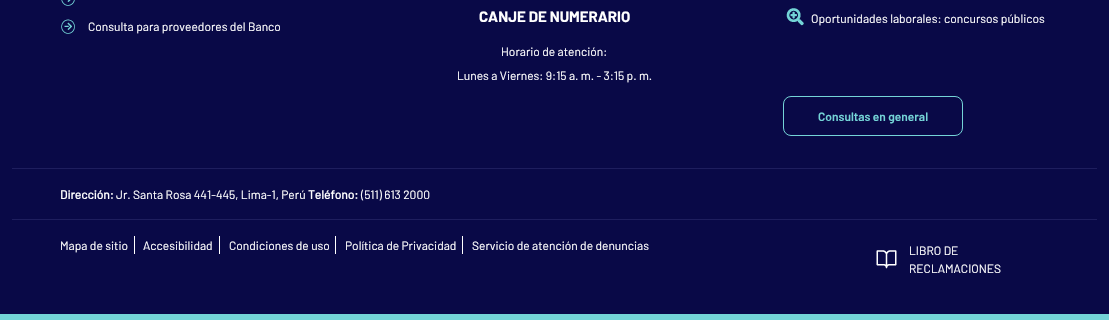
static SkFont makeFont(const char* family, int weight, float size, bool italic = false) {
  SkFontStyle style(weight, SkFontStyle::kNormal_Width,
    italic ? SkFontStyle::kItalic_Slant : SkFontStyle::kUpright_Slant);
  SkFont result(fontMgr->matchFamilyStyle(family, style), size);
  result.setSubpixel(true);
  return result;
}

static void text(SkCanvas* c, const char* s, float x, float y, const SkFont& font, SkColor color) {
  SkPaint ink(SkColor4f::FromColor(color));
  ink.setAntiAlias(true);
  c->drawString(s, x, y, font, ink);
}

static void box(SkCanvas* c, float l, float t, float r, float b, SkColor color) {
  SkPaint ink(SkColor4f::FromColor(color));
  ink.setAntiAlias(true);
  c->drawRect(SkRect::MakeLTRB(l, t, r, b), ink);
}

static void picture(SkCanvas* c, const char* path, float l, float t, float r, float b) {
  auto image = SkImages::DeferredFromEncodedData(SkData::MakeFromFileName(path));
  c->drawImageRect(image, SkRect::MakeLTRB(l, t, r, b), SkSamplingOptions());
}

void draw(SkCanvas* c) {
  SkPaint paint;
  paint.setAntiAlias(true);
  c->clear(0xff090947);
  box(c, 0, 314, 1109, 320, 0xff74d4d7);
  picture(c, "img_01.png", 61, 0, 75, 6);
  picture(c, "img_02.png", 61, 19, 75, 34);
  SkFont face1 = makeFont("Barlow", 400, 12);
  text(c, "Consulta para proveedores del Banco", 88, 31, face1, 0xffffffff);
  SkFont face2 = makeFont("Barlow", 700, 15);
  text(c, "CANJE DE NUMERARIO", 479, 22, face2, 0xffffffff);
  text(c, "Horario de atención:", 501, 56, face1, 0xffffffff);
  text(c, "Lunes a Viernes: 9:15 a. m. - 3:15 p. m.", 457, 80, face1, 0xffffffff);
  picture(c, "img_03.png", 786, 8, 804, 26);
  text(c, "Oportunidades laborales: concursos públicos", 811, 23, face1, 0xffffffff);
  paint.setStyle(SkPaint::kStroke_Style);
  paint.setStrokeWidth(1);
  paint.setColor(0xff74d4d7);
  c->drawRoundRect(SkRect::MakeLTRB(783.5f, 96.5f, 962.5f, 135.5f), 7.5f, 7.5f, paint);
  SkFont face3 = makeFont("Barlow", 600, 12);
  text(c, "Consultas en general", 818, 121, face3, 0xff74d4d7);
  box(c, 12, 168, 1097, 169, 0xff1e1e5e);
  box(c, 12, 219, 1097, 220, 0xff1e1e5e);
  SkFont face4 = makeFont("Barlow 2", 700, 12);
  text(c, "Dirección:", 60, 199, face4, 0xffffffff);
  text(c, "Jr. Santa Rosa 441-445, Lima-1, Perú", 116, 199, face1, 0xffffffff);
  text(c, "Teléfono:", 308, 199, face4, 0xffffffff);
  text(c, "(511) 613 2000", 361, 199, face1, 0xffffffff);
  box(c, 134, 236, 135, 254, 0xffffffff);
  text(c, "Mapa de sitio", 60, 250, face1, 0xffffffff);
  box(c, 219, 236, 220, 254, 0xffffffff);
  text(c, "Accesibilidad", 143, 250, face1, 0xffffffff);
  box(c, 335, 236, 336, 254, 0xffffffff);
  text(c, "Condiciones de uso", 229, 250, face1, 0xffffffff);
  box(c, 462, 236, 463, 254, 0xffffffff);
  text(c, "Política de Privacidad", 345, 250, face1, 0xffffffff);
  text(c, "Servicio de atención de denuncias", 472, 250, face1, 0xffffffff);
  picture(c, "img_04.png", 876, 250, 897, 269);
  text(c, "LIBRO DE", 909, 255, face1, 0xffffffff);
  text(c, "RECLAMACIONES", 909, 273, face1, 0xffffffff);
}
